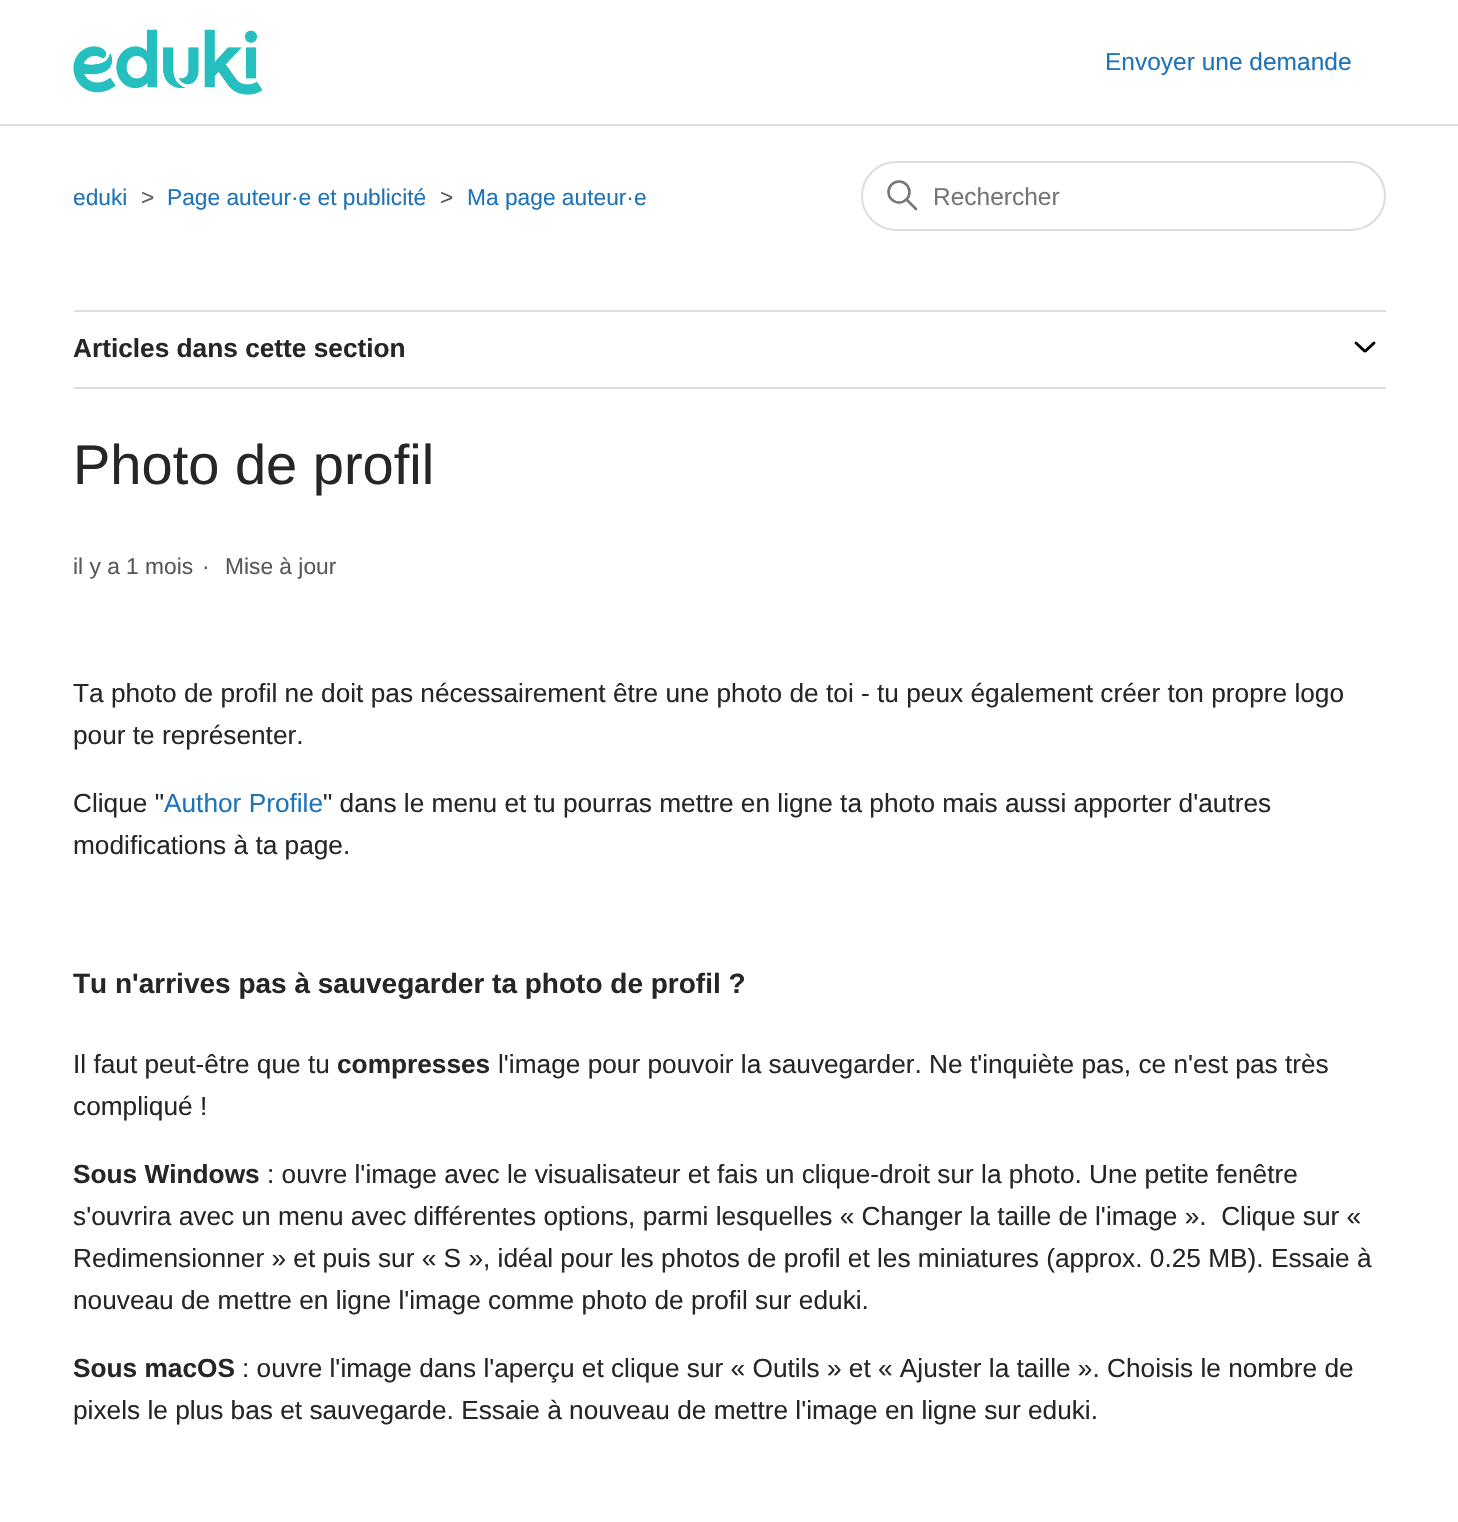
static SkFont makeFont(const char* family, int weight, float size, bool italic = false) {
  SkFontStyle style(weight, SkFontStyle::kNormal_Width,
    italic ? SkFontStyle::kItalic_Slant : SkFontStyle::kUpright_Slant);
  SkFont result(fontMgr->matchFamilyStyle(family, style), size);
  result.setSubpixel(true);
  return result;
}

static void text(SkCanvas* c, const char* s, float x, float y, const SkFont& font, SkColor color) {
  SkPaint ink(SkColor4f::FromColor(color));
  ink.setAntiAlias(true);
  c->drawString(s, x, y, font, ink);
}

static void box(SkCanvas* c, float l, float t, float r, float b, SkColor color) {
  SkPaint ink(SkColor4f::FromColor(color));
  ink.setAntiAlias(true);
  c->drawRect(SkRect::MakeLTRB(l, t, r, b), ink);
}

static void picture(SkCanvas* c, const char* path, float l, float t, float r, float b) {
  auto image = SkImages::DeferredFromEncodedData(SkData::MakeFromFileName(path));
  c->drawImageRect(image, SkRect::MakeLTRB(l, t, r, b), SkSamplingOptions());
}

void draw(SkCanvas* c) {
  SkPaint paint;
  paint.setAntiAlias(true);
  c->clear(0xffffffff);
  picture(c, "img_01.png", 73, 29, 263, 95);
  SkFont face1 = makeFont("Liberation Sans", 400, 24.5f);
  text(c, "Envoyer une demande", 1105, 70, face1, 0xff1f73b7);
  box(c, 0, 124, 1458, 126, 0xffdddddd);
  SkFont face2 = makeFont("Liberation Sans", 400, 22.75f);
  text(c, "eduki", 73, 205, face2, 0xff1f73b7);
  text(c, ">", 141, 205, face2, 0xff595959);
  text(c, "Page auteur·e et publicité", 167, 205, face2, 0xff1f73b7);
  text(c, ">", 440, 205, face2, 0xff595959);
  text(c, "Ma page auteur·e", 467, 205, face2, 0xff1f73b7);
  paint.setStyle(SkPaint::kStroke_Style);
  paint.setStrokeWidth(2);
  paint.setColor(0xffdddddd);
  c->drawRoundRect(SkRect::MakeLTRB(862, 162, 1385, 230), 34, 34, paint);
  paint.setStrokeWidth(2.6f);
  paint.setColor(0xff777777);
  c->drawCircle(899, 192, 10.5f, paint);
  paint.setStrokeCap(SkPaint::kRound_Cap);
  c->drawPath(SkPathBuilder().moveTo(916, 209).lineTo(907, 200).detach(), paint);
  text(c, "Rechercher", 933, 205, face1, 0xff757575);
  box(c, 74, 310, 1386, 312, 0xffdddddd);
  box(c, 74, 387, 1386, 389, 0xffdddddd);
  SkFont face3 = makeFont("Liberation Sans", 700, 26.25f);
  text(c, "Articles dans cette section", 73, 357, face3, 0xff262626);
  paint.setStrokeWidth(2.9f);
  paint.setColor(0xff000000);
  c->drawPath(SkPathBuilder().moveTo(1356, 343).lineTo(1364, 350.5f).cubicTo(1364.5f, 351, 1365.5f, 351, 1366, 350.5f).lineTo(1374, 343).detach(), paint);
  SkFont face4 = makeFont("Liberation Sans", 400, 56);
  text(c, "Photo de profil", 73, 484, face4, 0xff262626);
  text(c, "il y a 1 mois", 73, 574, face2, 0xff595959);
  text(c, "·", 202, 574, face2, 0xff595959);
  text(c, "Mise à jour", 225, 574, face2, 0xff595959);
  SkFont face5 = makeFont("Liberation Sans", 400, 26.25f);
  text(c, "Ta photo de profil ne doit pas nécessairement être une photo de toi - tu peux également créer ton propre logo", 73, 702, face5, 0xff262626);
  text(c, "pour te représenter.", 73, 744, face5, 0xff262626);
  text(c, "Clique \"", 73, 812, face5, 0xff262626);
  text(c, "Author Profile", 164, 812, face5, 0xff1f73b7);
  text(c, "\" dans le menu et tu pourras mettre en ligne ta photo mais aussi apporter d'autres", 323, 812, face5, 0xff262626);
  text(c, "modifications à ta page.", 73, 854, face5, 0xff262626);
  SkFont face6 = makeFont("Liberation Sans", 700, 28);
  text(c, "Tu n'arrives pas à sauvegarder ta photo de profil ?", 73, 993, face6, 0xff262626);
  text(c, "Il faut peut-être que tu", 73, 1073, face5, 0xff262626);
  text(c, "compresses", 337, 1073, face3, 0xff262626);
  text(c, "l'image pour pouvoir la sauvegarder. Ne t'inquiète pas, ce n'est pas très", 498, 1073, face5, 0xff262626);
  text(c, "compliqué !", 73, 1115, face5, 0xff262626);
  text(c, "Sous Windows", 73, 1183, face3, 0xff262626);
  text(c, ": ouvre l'image avec le visualisateur et fais un clique-droit sur la photo. Une petite fenêtre", 267, 1183, face5, 0xff262626);
  text(c, "s'ouvrira avec un menu avec différentes options, parmi lesquelles « Changer la taille de l'image ».  Clique sur «", 73, 1225, face5, 0xff262626);
  text(c, "Redimensionner » et puis sur « S », idéal pour les photos de profil et les miniatures (approx. 0.25 MB). Essaie à", 73, 1267, face5, 0xff262626);
  text(c, "nouveau de mettre en ligne l'image comme photo de profil sur eduki.", 73, 1309, face5, 0xff262626);
  text(c, "Sous macOS", 73, 1377, face3, 0xff262626);
  text(c, ": ouvre l'image dans l'aperçu et clique sur « Outils » et « Ajuster la taille ». Choisis le nombre de", 242, 1377, face5, 0xff262626);
  text(c, "pixels le plus bas et sauvegarde. Essaie à nouveau de mettre l'image en ligne sur eduki.", 73, 1419, face5, 0xff262626);
}
